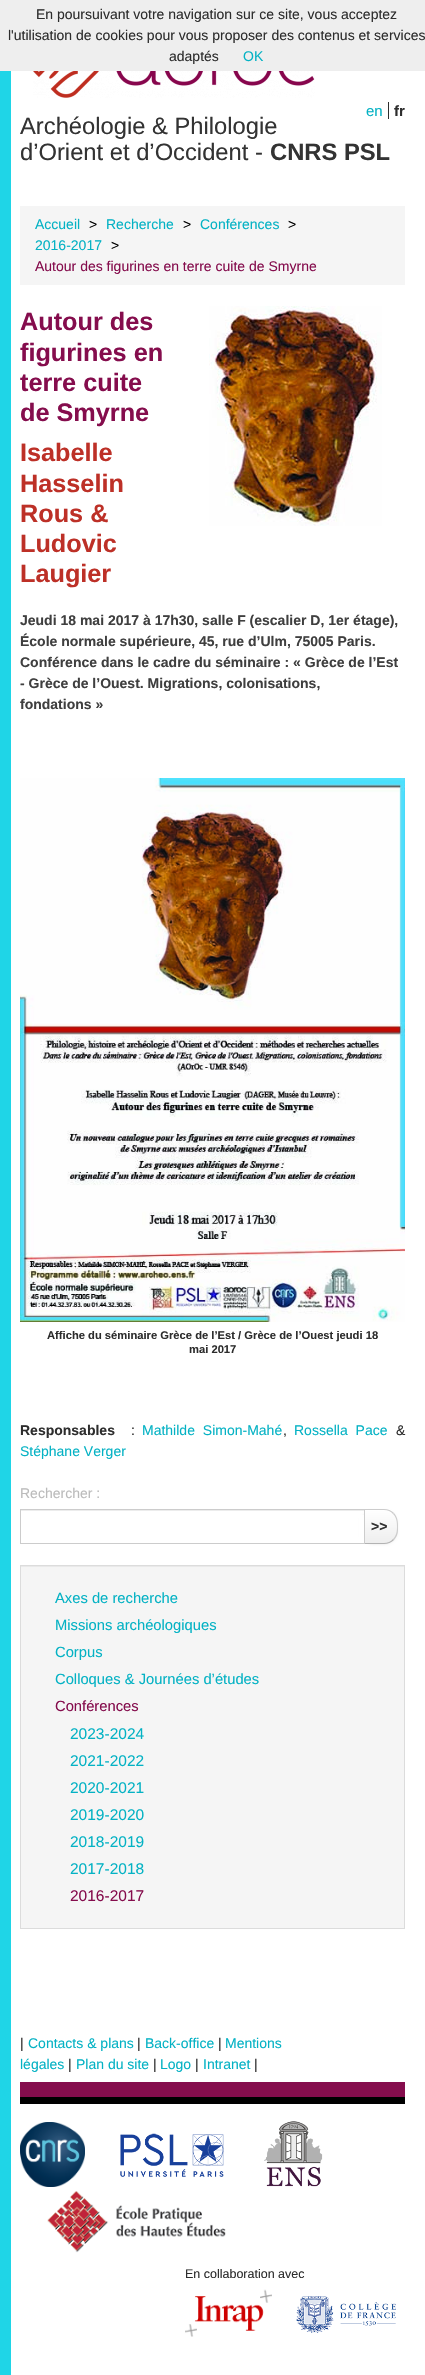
static SkFont makeFont(const char* family, int weight, float size, bool italic = false) {
  SkFontStyle style(weight, SkFontStyle::kNormal_Width,
    italic ? SkFontStyle::kItalic_Slant : SkFontStyle::kUpright_Slant);
  SkFont result(fontMgr->matchFamilyStyle(family, style), size);
  result.setSubpixel(true);
  return result;
}

static void text(SkCanvas* c, const char* s, float x, float y, const SkFont& font, SkColor color) {
  SkPaint ink(SkColor4f::FromColor(color));
  ink.setAntiAlias(true);
  c->drawString(s, x, y, font, ink);
}

static void spacedText(SkCanvas* c, const char* s, float x, float y, const SkFont& font, const SkPaint& ink, float letter, float word) {
  std::vector<SkGlyphID> glyphs(font.countText(s, strlen(s), SkTextEncoding::kUTF8));
  std::vector<float> xs(glyphs.size());
  font.textToGlyphs(s, strlen(s), SkTextEncoding::kUTF8, glyphs);
  font.getXPos(glyphs, xs, x);
  float extra = 0;
  for (size_t i = 0; i < glyphs.size(); i++) {
    xs[i] += extra;
    extra += letter + word * (glyphs[i] == font.unicharToGlyph(' '));
  }
  c->drawTextBlob(SkTextBlob::MakeFromPosHGlyphs(glyphs, xs, y, font), 0, 0, ink);
}

static void box(SkCanvas* c, float l, float t, float r, float b, SkColor color) {
  SkPaint ink(SkColor4f::FromColor(color));
  ink.setAntiAlias(true);
  c->drawRect(SkRect::MakeLTRB(l, t, r, b), ink);
}

static void picture(SkCanvas* c, const char* path, float l, float t, float r, float b) {
  auto image = SkImages::DeferredFromEncodedData(SkData::MakeFromFileName(path));
  c->drawImageRect(image, SkRect::MakeLTRB(l, t, r, b), SkSamplingOptions());
}

void draw(SkCanvas* c) {
  SkPaint paint;
  paint.setAntiAlias(true);
  c->clear(0xffffffff);
  box(c, 0, 0, 425, 71, 0xffeeeeee);
  SkFont face1 = makeFont("Liberation Sans", 400, 14);
  text(c, "En poursuivant votre navigation sur ce site, vous acceptez", 36, 19, face1, 0xff2d2d2d);
  text(c, "l'utilisation de cookies pour vous proposer des contenus et services", 8, 40, face1, 0xff2d2d2d);
  text(c, "adaptés", 169, 61, face1, 0xff2d2d2d);
  text(c, "OK", 243, 61, face1, 0xff04b2c4);
  box(c, 0, 71, 11, 2375, 0xff1fd5e7);
  SkFont face2 = makeFont("Liberation Sans", 400, 15);
  text(c, "en", 366, 116, face2, 0xff04b2c4);
  SkFont face3 = makeFont("Liberation Sans", 700, 15);
  text(c, "fr", 394, 116, face3, 0xff2d2d2d);
  box(c, 388, 102, 389, 119, 0xff2d2d2d);
  picture(c, "img_01.png", 33, 71, 315, 98);
  SkFont face4 = makeFont("Liberation Sans", 400, 23.75f);
  text(c, "Archéologie & Philologie", 20, 134, face4, 0xff333333);
  text(c, "d’Orient et d’Occident -", 20, 160, face4, 0xff333333);
  SkFont face5 = makeFont("Liberation Sans", 700, 23.75f);
  text(c, "CNRS PSL", 270, 160, face5, 0xff333333);
  box(c, 20, 206, 405, 285, 0xfff5f5f5);
  text(c, "Accueil", 35, 229, face1, 0xff04b2c4);
  text(c, ">", 89, 229, face1, 0xff000000);
  text(c, "Recherche", 106, 229, face1, 0xff04b2c4);
  text(c, ">", 183, 229, face1, 0xff000000);
  text(c, "Conférences", 200, 229, face1, 0xff04b2c4);
  text(c, ">", 288, 229, face1, 0xff000000);
  text(c, "2016-2017", 35, 250, face1, 0xff04b2c4);
  text(c, ">", 111, 250, face1, 0xff000000);
  text(c, "Autour des figurines en terre cuite de Smyrne", 35, 271, face1, 0xff850d4d);
  SkFont face6 = makeFont("Liberation Sans", 700, 25.25f);
  text(c, "Autour des", 20, 330, face6, 0xff850d4d);
  text(c, "figurines en", 20, 361, face6, 0xff850d4d);
  text(c, "terre cuite", 20, 391, face6, 0xff850d4d);
  text(c, "de Smyrne", 20, 421, face6, 0xff850d4d);
  text(c, "Isabelle", 20, 461, face6, 0xffbd3027);
  text(c, "Hasselin", 20, 492, face6, 0xffbd3027);
  text(c, "Rous &", 20, 522, face6, 0xffbd3027);
  text(c, "Ludovic", 20, 552, face6, 0xffbd3027);
  text(c, "Laugier", 20, 582, face6, 0xffbd3027);
  picture(c, "img_02.png", 209, 306, 382, 526);
  SkFont face7 = makeFont("Liberation Sans", 700, 14);
  text(c, "Jeudi 18 mai 2017 à 17h30, salle F (escalier D, 1er étage),", 20, 625, face7, 0xff3f3f3f);
  text(c, "École normale supérieure, 45, rue d’Ulm, 75005 Paris.", 20, 646, face7, 0xff3f3f3f);
  text(c, "Conférence dans le cadre du séminaire : « Grèce de l’Est", 20, 667, face7, 0xff3f3f3f);
  text(c, "- Grèce de l’Ouest. Migrations, colonisations,", 20, 688, face7, 0xff3f3f3f);
  text(c, "fondations »", 20, 709, face7, 0xff3f3f3f);
  picture(c, "img_03.png", 20, 778, 405, 1322);
  SkFont face8 = makeFont("Liberation Sans", 700, 11.2f);
  text(c, "Affiche du séminaire Grèce de l’Est / Grèce de l’Ouest jeudi 18", 47, 1339, face8, 0xff2d2d2d);
  text(c, "mai 2017", 189, 1353, face8, 0xff2d2d2d);
  text(c, "Responsables", 20, 1435, face7, 0xff2d2d2d);
  text(c, ":", 131, 1435, face1, 0xff2d2d2d);
  paint.setColor(0xff04b2c4);
  spacedText(c, "Mathilde Simon-Mahé", 142, 1435, face1, paint, 0, 4);
  text(c, ",", 283, 1435, face1, 0xff2d2d2d);
  spacedText(c, "Rossella Pace", 294, 1435, face1, paint, 0, 4);
  text(c, "&", 396, 1435, face1, 0xff2d2d2d);
  text(c, "Stéphane Verger", 20, 1456, face1, 0xff04b2c4);
  text(c, "Rechercher :", 20, 1498, face1, 0xffbbbbbb);
  paint.setColor(0x0d000000);
  paint.setMaskFilter(SkMaskFilter::MakeBlur(kNormal_SkBlurStyle, 1));
  c->drawRoundRect(SkRect::MakeLTRB(360, 1510, 398, 1545), 14, 14, paint);
  paint.setMaskFilter(nullptr);
  c->save();
  c->clipPath(SkPathBuilder().moveTo(360, 1509).lineTo(384, 1509).cubicTo(391.5f, 1509, 398, 1515.5f, 398, 1523).lineTo(398, 1530).cubicTo(398, 1537.5f, 391.5f, 1544, 384, 1544).lineTo(360, 1544).close().detach(), true);
  {
    const SkColor colors[] = {0xffffffff, 0xffeeeeee};
    const float stops[] = {0, 1};
    const SkPoint ends[] = {{379, 1510}, {379, 1543}};
    paint.setShader(SkGradientShader::MakeLinear(ends, colors, stops, 2, SkTileMode::kClamp));
    paint.setAlpha(255);
  }
  c->drawRect(SkRect::MakeLTRB(365, 1510, 398, 1543), paint);
  c->restore();
  paint.setShader(nullptr);
  paint.setColor(0xffcccccc);
  c->drawPath(SkPathBuilder().moveTo(360, 1509).lineTo(361, 1510).lineTo(384, 1510).cubicTo(387.5f, 1510, 391, 1511.5f, 393, 1514).lineTo(394, 1513).cubicTo(391, 1510.5f, 388, 1509, 384, 1509).close().detach(), paint);
  c->drawPath(SkPathBuilder().moveTo(398, 1530).cubicTo(398, 1524, 398.5f, 1518, 394, 1513).lineTo(393, 1514).cubicTo(396.5f, 1517.5f, 397, 1521.5f, 397, 1526.5f).cubicTo(397, 1531.5f, 396.5f, 1535.5f, 393, 1539).lineTo(394, 1540).cubicTo(396.5f, 1537, 398, 1534, 398, 1530).close().detach(), paint);
  paint.setColor(0xffb3b3b3);
  c->drawPath(SkPathBuilder().moveTo(384, 1544).cubicTo(388, 1544, 391, 1542.5f, 394, 1540).lineTo(393, 1539).cubicTo(391, 1541.5f, 387.5f, 1543, 384, 1543).lineTo(361, 1543).lineTo(360, 1544).close().detach(), paint);
  box(c, 359, 1515, 364, 1543, 0xffffffff);
  box(c, 21, 1510, 364, 1511, 0xffececec);
  paint.setStyle(SkPaint::kStroke_Style);
  paint.setStrokeWidth(1);
  paint.setColor(0xffcccccc);
  c->drawRect(SkRect::MakeLTRB(20.5f, 1509.5f, 364.5f, 1543.5f), paint);
  text(c, ">>", 371, 1531, face7, 0xff333333);
  box(c, 21, 1567, 404, 1928, 0xfff5f5f5);
  box(c, 21, 1566, 404, 1567, 0xffe9e9e9);
  paint.setColor(0xffdcdcdc);
  c->drawRect(SkRect::MakeLTRB(20.5f, 1565.5f, 404.5f, 1928.5f), paint);
  SkFont face9 = makeFont("Liberation Sans", 400, 14.75f);
  text(c, "Axes de recherche", 55, 1603, face9, 0xff04b2c4);
  text(c, "Missions archéologiques", 55, 1630, face9, 0xff04b2c4);
  text(c, "Corpus", 55, 1657, face9, 0xff04b2c4);
  text(c, "Colloques & Journées d’études", 55, 1684, face9, 0xff04b2c4);
  text(c, "Conférences", 55, 1711, face9, 0xff850d4d);
  SkFont face10 = makeFont("Liberation Sans", 400, 15.5f);
  text(c, "2023-2024", 70, 1739, face10, 0xff04b2c4);
  text(c, "2021-2022", 70, 1766, face10, 0xff04b2c4);
  text(c, "2020-2021", 70, 1793, face10, 0xff04b2c4);
  text(c, "2019-2020", 70, 1820, face10, 0xff04b2c4);
  text(c, "2018-2019", 70, 1847, face10, 0xff04b2c4);
  text(c, "2017-2018", 70, 1874, face10, 0xff04b2c4);
  text(c, "2016-2017", 70, 1901, face10, 0xff850d4d);
  text(c, "|", 20, 2048, face1, 0xff2d2d2d);
  text(c, "Contacts & plans", 28, 2048, face1, 0xff04b2c4);
  text(c, "|", 137, 2048, face1, 0xff2d2d2d);
  text(c, "Back-office", 145, 2048, face1, 0xff04b2c4);
  text(c, "|", 218, 2048, face1, 0xff2d2d2d);
  text(c, "Mentions", 225, 2048, face1, 0xff04b2c4);
  text(c, "légales", 20, 2069, face1, 0xff04b2c4);
  text(c, "|", 68, 2069, face1, 0xff2d2d2d);
  text(c, "Plan du site", 76, 2069, face1, 0xff04b2c4);
  text(c, "|", 153, 2069, face1, 0xff2d2d2d);
  text(c, "Logo", 160, 2069, face1, 0xff04b2c4);
  text(c, "|", 195, 2069, face1, 0xff2d2d2d);
  text(c, "Intranet", 203, 2069, face1, 0xff04b2c4);
  text(c, "|", 254, 2069, face1, 0xff2d2d2d);
  box(c, 20, 2082, 405, 2097, 0xff850d4d);
  box(c, 20, 2097, 405, 2104, 0xff000000);
  picture(c, "img_04.png", 20, 2122, 85, 2187);
  picture(c, "img_05.png", 120, 2133, 224, 2177);
  picture(c, "img_06.png", 264, 2121, 323, 2187);
  picture(c, "img_07.png", 47, 2191, 226, 2253);
  SkFont face11 = makeFont("Liberation Sans", 400, 12.5f);
  text(c, "En collaboration avec", 185, 2278, face11, 0xff2d2d2d);
  picture(c, "img_08.png", 185, 2289, 272, 2337);
  picture(c, "img_09.png", 296, 2296, 396, 2333);
}
